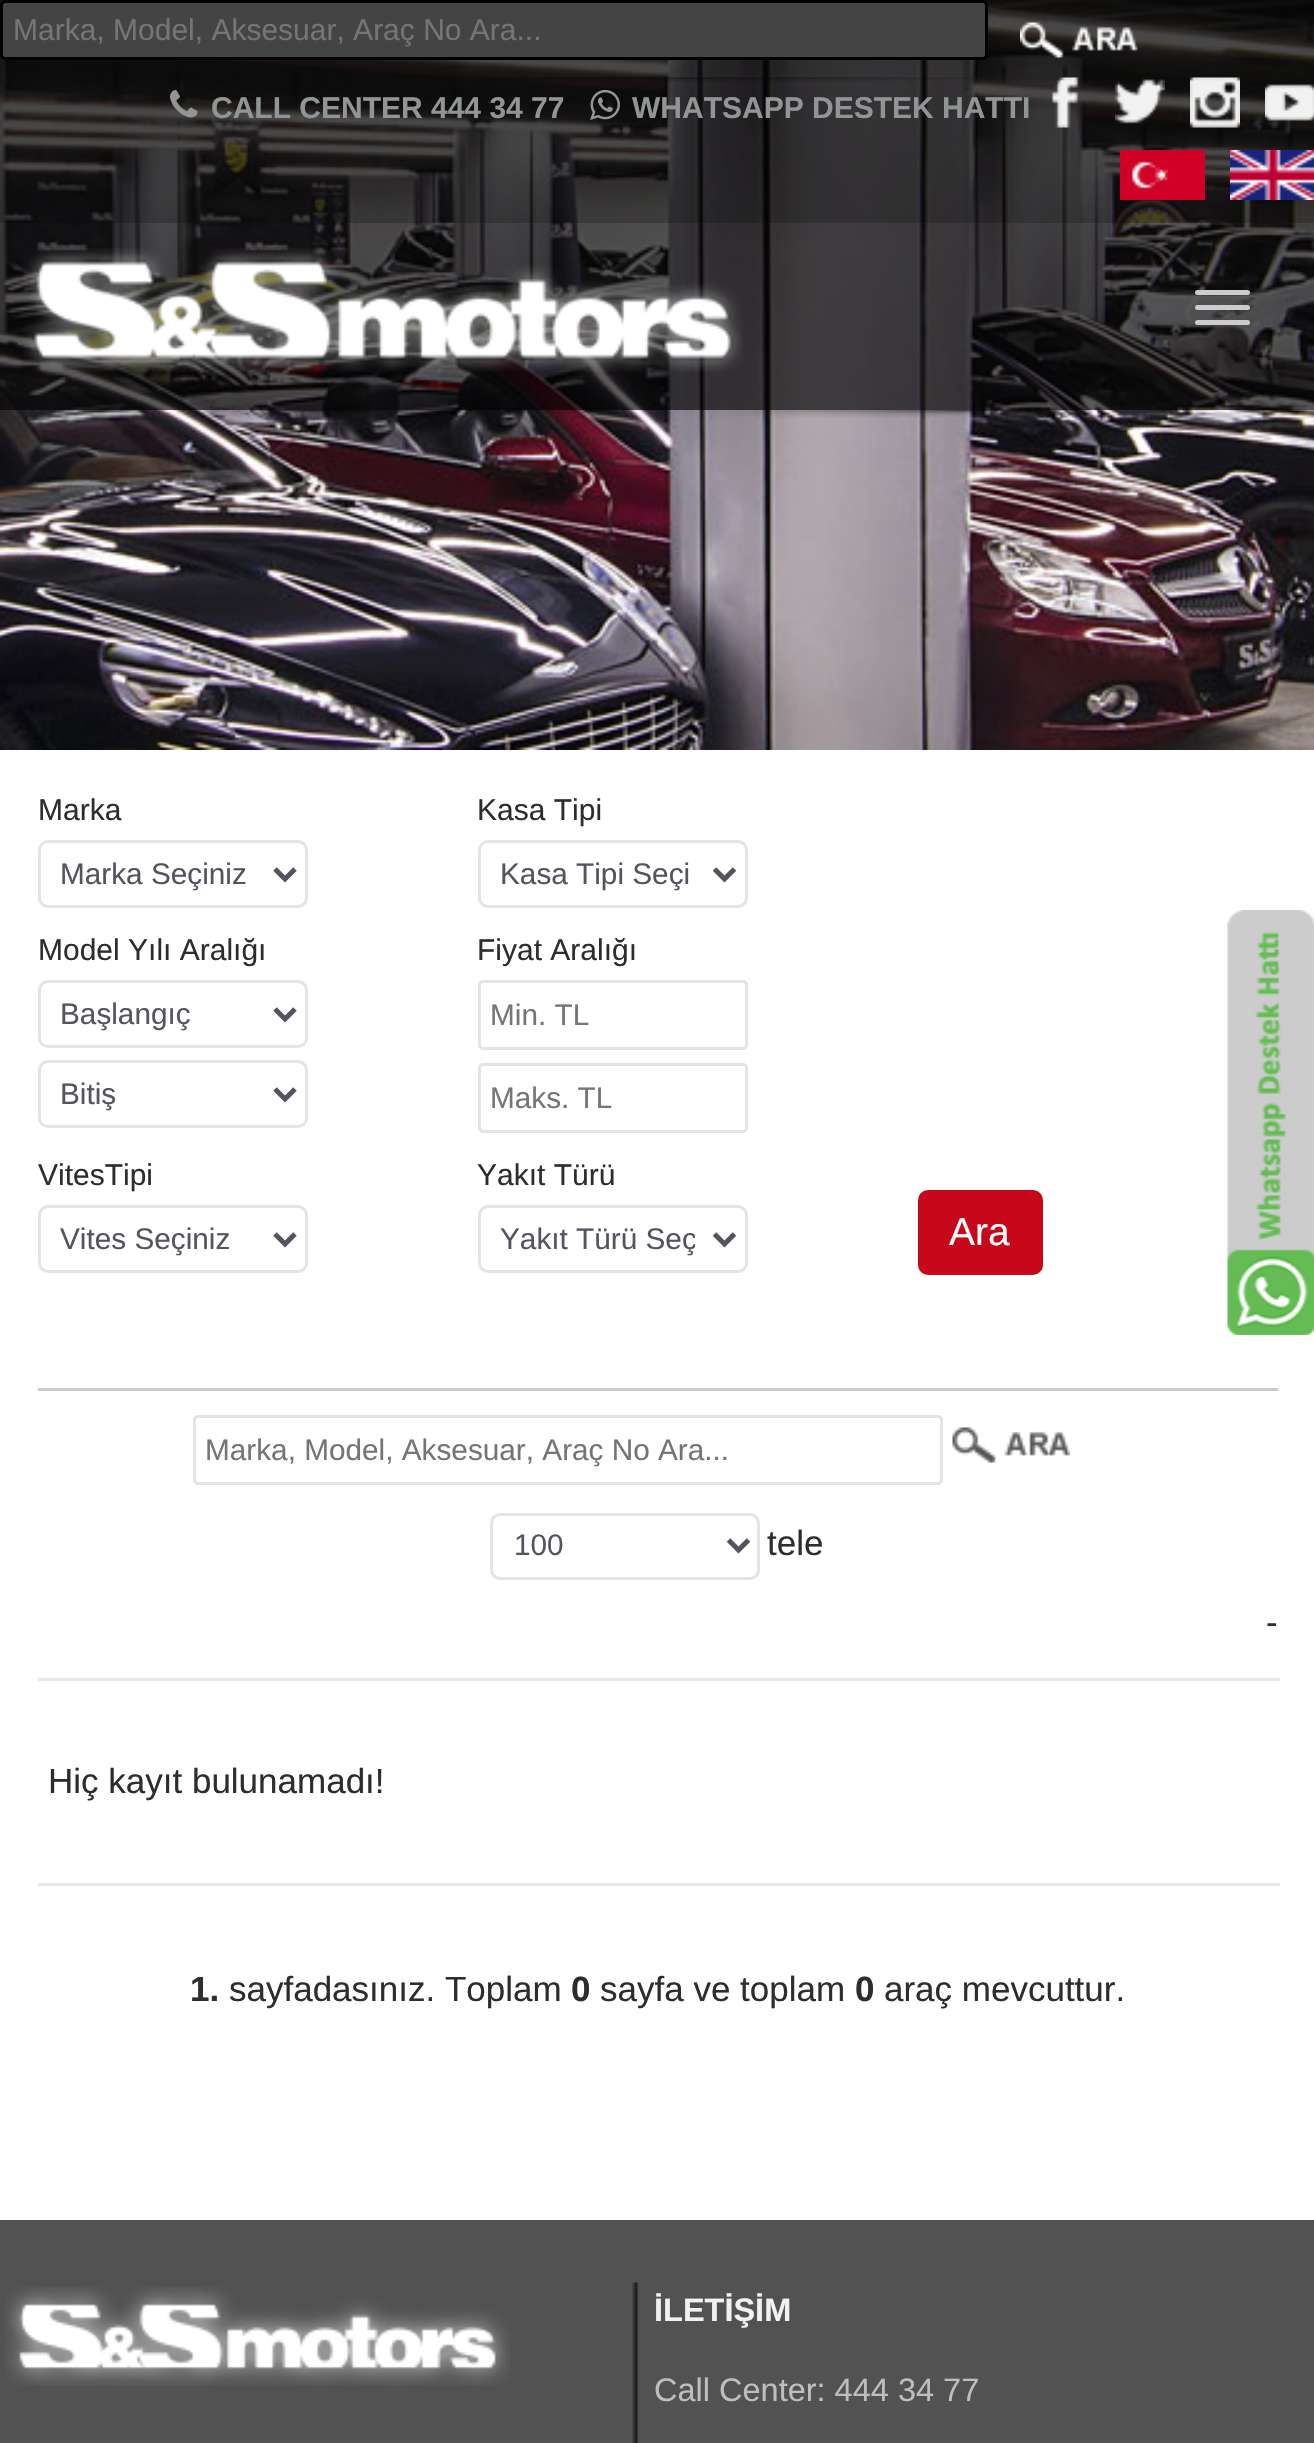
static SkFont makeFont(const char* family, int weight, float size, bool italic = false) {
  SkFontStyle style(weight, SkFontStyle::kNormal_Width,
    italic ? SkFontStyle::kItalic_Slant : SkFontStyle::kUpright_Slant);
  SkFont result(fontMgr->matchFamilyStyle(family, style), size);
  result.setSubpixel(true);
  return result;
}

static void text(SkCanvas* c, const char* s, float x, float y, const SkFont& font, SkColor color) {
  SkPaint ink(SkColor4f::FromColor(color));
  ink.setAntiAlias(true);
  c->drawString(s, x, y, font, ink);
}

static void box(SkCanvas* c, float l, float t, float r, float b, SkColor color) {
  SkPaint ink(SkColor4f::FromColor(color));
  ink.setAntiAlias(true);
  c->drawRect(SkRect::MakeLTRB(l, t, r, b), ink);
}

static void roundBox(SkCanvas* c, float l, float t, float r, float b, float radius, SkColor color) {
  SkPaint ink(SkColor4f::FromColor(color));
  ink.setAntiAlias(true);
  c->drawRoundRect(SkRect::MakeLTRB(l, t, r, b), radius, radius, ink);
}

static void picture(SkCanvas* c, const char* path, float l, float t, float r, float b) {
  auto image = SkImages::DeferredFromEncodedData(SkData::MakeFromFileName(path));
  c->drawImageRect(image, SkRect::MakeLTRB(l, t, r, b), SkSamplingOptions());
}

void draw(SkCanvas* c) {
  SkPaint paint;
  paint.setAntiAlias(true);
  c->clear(0xffffffff);
  picture(c, "img_01.png", 0, 0, 1314, 750);
  box(c, 0, 0, 1314, 410, 0xa6000000);
  box(c, 0, 0, 1314, 223, 0x33000000);
  paint.setColor(0xff444444);
  c->drawRoundRect(SkRect::MakeLTRB(1.5f, 1.5f, 986.5f, 58.5f), 3.5f, 3.5f, paint);
  paint.setStyle(SkPaint::kStroke_Style);
  paint.setStrokeWidth(3);
  paint.setColor(0xff000000);
  c->drawRoundRect(SkRect::MakeLTRB(1.5f, 1.5f, 986.5f, 58.5f), 3.5f, 3.5f, paint);
  SkFont face1 = makeFont("Liberation Sans", 400, 30);
  text(c, "Marka, Model, Aksesuar, Araç No Ara...", 13, 40, face1, 0xff757575);
  picture(c, "img_02.png", 1020, 22, 1138, 58);
  picture(c, "img_03.png", 170, 90, 198, 118);
  SkFont face2 = makeFont("Liberation Sans", 700, 30);
  text(c, "CALL CENTER 444 34 77", 211, 118, face2, 0xff929596);
  picture(c, "img_04.png", 590, 89, 620, 120);
  text(c, "WHATSAPP DESTEK HATTI", 632, 118, face2, 0xff929596);
  picture(c, "img_05.png", 1051, 77, 1079, 128);
  picture(c, "img_06.png", 1115, 79, 1165, 124);
  picture(c, "img_07.png", 1190, 77, 1240, 128);
  picture(c, "img_08.png", 1265, 84, 1314, 121);
  picture(c, "img_09.png", 1120, 150, 1205, 200);
  picture(c, "img_10.png", 1230, 150, 1314, 200);
  picture(c, "img_11.png", 477, 77, 973, 82);
  picture(c, "img_12.png", 23, 248, 743, 372);
  roundBox(c, 1195, 290, 1250, 295, 2.5f, 0xffcccccc);
  roundBox(c, 1195, 305, 1250, 310, 2.5f, 0xffcccccc);
  roundBox(c, 1195, 320, 1250, 325, 2.5f, 0xffcccccc);
  picture(c, "img_13.png", 218, 410, 1097, 418);
  picture(c, "img_14.png", 1227, 910, 1314, 1335);
  text(c, "Marka", 38, 820, face1, 0xff2d2d2d);
  paint.setColor(0xffe4e4e4);
  c->drawRoundRect(SkRect::MakeLTRB(39.5f, 841.5f, 306.5f, 906.5f), 8.5f, 8.5f, paint);
  paint.setStrokeWidth(5);
  paint.setColor(0xff54545e);
  c->drawPath(SkPathBuilder().moveTo(275, 869).lineTo(285, 879).lineTo(295, 869).detach(), paint);
  SkFont face3 = makeFont("Liberation Sans", 400, 29.75f);
  text(c, "Marka Seçiniz", 60, 884, face3, 0xff54545e);
  text(c, "Kasa Tipi", 477, 820, face1, 0xff2d2d2d);
  paint.setStrokeWidth(3);
  paint.setColor(0xffe4e4e4);
  c->drawRoundRect(SkRect::MakeLTRB(479.5f, 841.5f, 746.5f, 906.5f), 8.5f, 8.5f, paint);
  paint.setStrokeWidth(5);
  paint.setColor(0xff54545e);
  c->drawPath(SkPathBuilder().moveTo(714.5f, 869).lineTo(724.5f, 879).lineTo(734.5f, 869).detach(), paint);
  text(c, "Kasa Tipi Seçi", 500, 884, face3, 0xff54545e);
  text(c, "Model Yılı Aralığı", 38, 960, face1, 0xff2d2d2d);
  paint.setStrokeWidth(3);
  paint.setColor(0xffe4e4e4);
  c->drawRoundRect(SkRect::MakeLTRB(39.5f, 981.5f, 306.5f, 1046.5f), 8.5f, 8.5f, paint);
  paint.setStrokeWidth(5);
  paint.setColor(0xff54545e);
  c->drawPath(SkPathBuilder().moveTo(275, 1009).lineTo(285, 1019).lineTo(295, 1009).detach(), paint);
  text(c, "Başlangıç", 60, 1024, face3, 0xff54545e);
  paint.setStrokeWidth(3);
  paint.setColor(0xffe4e4e4);
  c->drawRoundRect(SkRect::MakeLTRB(39.5f, 1061.5f, 306.5f, 1126.5f), 8.5f, 8.5f, paint);
  paint.setStrokeWidth(5);
  paint.setColor(0xff54545e);
  c->drawPath(SkPathBuilder().moveTo(275, 1089).lineTo(285, 1099).lineTo(295, 1089).detach(), paint);
  text(c, "Bitiş", 60, 1104, face3, 0xff54545e);
  text(c, "Fiyat Aralığı", 477, 960, face1, 0xff2d2d2d);
  paint.setStrokeWidth(3);
  paint.setColor(0xffe4e4e4);
  c->drawRoundRect(SkRect::MakeLTRB(479.5f, 981.5f, 746.5f, 1048.5f), 3.5f, 3.5f, paint);
  text(c, "Min. TL", 490, 1025, face3, 0xff757575);
  c->drawRoundRect(SkRect::MakeLTRB(479.5f, 1064.5f, 746.5f, 1131.5f), 3.5f, 3.5f, paint);
  text(c, "Maks. TL", 490, 1108, face3, 0xff757575);
  text(c, "VitesTipi", 38, 1185, face1, 0xff2d2d2d);
  c->drawRoundRect(SkRect::MakeLTRB(39.5f, 1206.5f, 306.5f, 1271.5f), 8.5f, 8.5f, paint);
  paint.setStrokeWidth(5);
  paint.setColor(0xff54545e);
  c->drawPath(SkPathBuilder().moveTo(275, 1234).lineTo(285, 1244).lineTo(295, 1234).detach(), paint);
  text(c, "Vites Seçiniz", 60, 1249, face3, 0xff54545e);
  text(c, "Yakıt Türü", 477, 1185, face1, 0xff2d2d2d);
  paint.setStrokeWidth(3);
  paint.setColor(0xffe4e4e4);
  c->drawRoundRect(SkRect::MakeLTRB(479.5f, 1206.5f, 746.5f, 1271.5f), 8.5f, 8.5f, paint);
  paint.setStrokeWidth(5);
  paint.setColor(0xff54545e);
  c->drawPath(SkPathBuilder().moveTo(714.5f, 1234).lineTo(724.5f, 1244).lineTo(734.5f, 1234).detach(), paint);
  c->save();
  c->clipRect(SkRect::MakeLTRB(500, 1220, 695, 1260));
  text(c, "Yakıt Türü Seç", 500, 1249, face3, 0xff54545e);
  c->restore();
  roundBox(c, 918, 1190, 1043, 1275, 10, 0xffc7081b);
  SkFont face4 = makeFont("Liberation Sans", 400, 39);
  text(c, "Ara", 949, 1245, face4, 0xffffffff);
  box(c, 38, 1388, 1278, 1391, 0xffcccccc);
  paint.setStrokeWidth(3);
  paint.setColor(0xffe4e4e4);
  c->drawRoundRect(SkRect::MakeLTRB(194.5f, 1416.5f, 941.5f, 1483.5f), 3.5f, 3.5f, paint);
  text(c, "Marka, Model, Aksesuar, Araç No Ara...", 205, 1460, face3, 0xff757575);
  picture(c, "img_15.png", 952, 1427, 1070, 1463);
  c->drawRoundRect(SkRect::MakeLTRB(491.5f, 1514.5f, 758.5f, 1578.5f), 8.5f, 8.5f, paint);
  paint.setStrokeWidth(5);
  paint.setColor(0xff54545e);
  c->drawPath(SkPathBuilder().moveTo(728.5f, 1540).lineTo(738.5f, 1550).lineTo(748.5f, 1540).detach(), paint);
  text(c, "100", 514, 1555, face3, 0xff54545e);
  SkFont face5 = makeFont("Liberation Sans", 400, 35);
  text(c, "tele", 767, 1555, face5, 0xff2d2d2d);
  text(c, "-", 1266, 1634, face5, 0xff2d2d2d);
  box(c, 38, 1678, 1280, 1681, 0xffe4e7ec);
  box(c, 38, 1883, 1280, 1886, 0xffe4e7ec);
  text(c, "Hiç kayıt bulunamadı!", 48, 1793, face5, 0xff2d2d2d);
  SkFont face6 = makeFont("Liberation Sans", 700, 35);
  text(c, "1.", 190, 2001, face6, 0xff2d2d2d);
  text(c, "sayfadasınız. Toplam", 229, 2001, face5, 0xff2d2d2d);
  text(c, "0", 571, 2001, face6, 0xff2d2d2d);
  text(c, "sayfa ve toplam", 600, 2001, face5, 0xff2d2d2d);
  text(c, "0", 855, 2001, face6, 0xff2d2d2d);
  text(c, "araç mevcuttur.", 884, 2001, face5, 0xff2d2d2d);
  box(c, 0, 2220, 1314, 2443, 0xff525252);
  picture(c, "img_16.png", 632, 2282, 639, 2443);
  picture(c, "img_17.png", 5, 2286, 511, 2386);
  SkFont face7 = makeFont("Liberation Sans", 700, 32.5f);
  text(c, "İLETİŞİM", 654, 2321, face7, 0xfff1f1f1);
  SkFont face8 = makeFont("Liberation Sans", 400, 32.5f);
  text(c, "Call Center: 444 34 77", 654, 2401, face8, 0xffbebebe);
}
